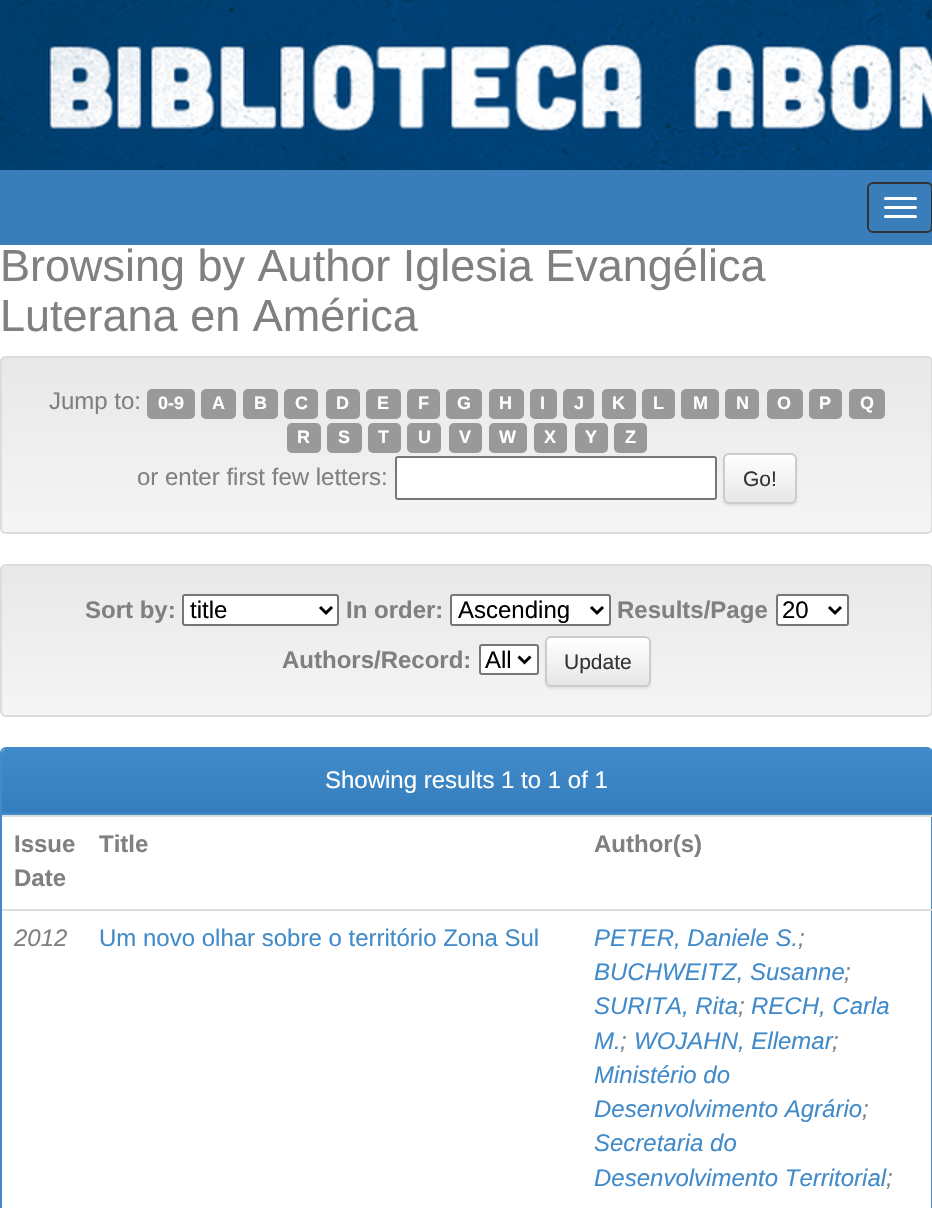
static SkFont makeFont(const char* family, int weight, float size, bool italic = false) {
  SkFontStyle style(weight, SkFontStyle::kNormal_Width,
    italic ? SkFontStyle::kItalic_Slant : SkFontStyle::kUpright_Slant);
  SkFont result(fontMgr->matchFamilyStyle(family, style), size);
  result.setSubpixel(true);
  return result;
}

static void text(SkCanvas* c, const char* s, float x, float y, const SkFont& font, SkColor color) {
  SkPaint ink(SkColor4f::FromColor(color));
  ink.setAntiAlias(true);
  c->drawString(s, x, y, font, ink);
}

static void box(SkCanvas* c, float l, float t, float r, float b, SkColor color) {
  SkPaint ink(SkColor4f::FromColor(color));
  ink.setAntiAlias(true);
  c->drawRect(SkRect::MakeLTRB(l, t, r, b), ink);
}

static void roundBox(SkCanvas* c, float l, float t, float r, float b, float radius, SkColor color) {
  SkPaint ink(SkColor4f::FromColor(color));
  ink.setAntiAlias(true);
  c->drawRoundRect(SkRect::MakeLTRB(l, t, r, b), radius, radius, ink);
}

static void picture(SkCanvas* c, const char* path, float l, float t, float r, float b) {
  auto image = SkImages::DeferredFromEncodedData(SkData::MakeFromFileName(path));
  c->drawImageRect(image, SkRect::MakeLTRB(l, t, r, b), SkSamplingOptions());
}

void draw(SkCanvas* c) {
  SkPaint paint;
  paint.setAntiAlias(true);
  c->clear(0xffffffff);
  box(c, 0, 170, 932, 245, 0xff397eba);
  picture(c, "img_01.png", 0, 0, 932, 170);
  paint.setStyle(SkPaint::kStroke_Style);
  paint.setStrokeWidth(2);
  paint.setColor(0xff333333);
  c->drawRoundRect(SkRect::MakeLTRB(868, 183, 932, 232), 5, 5, paint);
  roundBox(c, 884, 197, 917, 200, 1.5f, 0xffffffff);
  roundBox(c, 884, 206, 917, 209, 1.5f, 0xffffffff);
  roundBox(c, 884, 215, 917, 218, 1.5f, 0xffffffff);
  SkFont face1 = makeFont("Liberation Sans", 400, 45);
  text(c, "Browsing by Author Iglesia Evangélica", 0, 281, face1, 0xff808080);
  text(c, "Luterana en América", 0, 331, face1, 0xff808080);
  c->save();
  c->clipPath(SkPathBuilder().moveTo(6, 356).lineTo(927, 356).cubicTo(930.5f, 356, 933, 358.5f, 933, 362).lineTo(933, 528).cubicTo(933, 531.5f, 930.5f, 534, 927, 534).lineTo(6, 534).cubicTo(2.5f, 534, 0, 531.5f, 0, 528).lineTo(0, 362).cubicTo(0, 358.5f, 2.5f, 356, 6, 356).close().detach(), true);
  paint.setStyle(SkPaint::kFill_Style);
  {
    const SkColor colors[] = {0xffe8e8e8, 0xfff5f5f5};
    const float stops[] = {0, 1};
    const SkPoint ends[] = {{467, 357}, {467, 533}};
    paint.setShader(SkGradientShader::MakeLinear(ends, colors, stops, 2, SkTileMode::kClamp));
    paint.setAlpha(255);
  }
  c->drawRect(SkRect::MakeLTRB(0, 357, 932, 533), paint);
  c->restore();
  paint.setStyle(SkPaint::kStroke_Style);
  paint.setShader(nullptr);
  paint.setColor(0xffdcdcdc);
  c->drawRoundRect(SkRect::MakeLTRB(1, 357, 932, 533), 5, 5, paint);
  SkFont face2 = makeFont("Liberation Sans", 400, 24);
  text(c, "Jump to:", 49, 409, face2, 0xff808080);
  roundBox(c, 147, 389, 195, 419, 5, 0xff999999);
  SkFont face3 = makeFont("Liberation Sans", 700, 18);
  text(c, "0-9", 158, 409, face3, 0xffffffff);
  roundBox(c, 201, 389, 236, 419, 5, 0xff999999);
  text(c, "A", 212, 409, face3, 0xffffffff);
  roundBox(c, 243, 389, 278, 419, 5, 0xff999999);
  text(c, "B", 254, 409, face3, 0xffffffff);
  roundBox(c, 284, 389, 318, 419, 5, 0xff999999);
  text(c, "C", 295, 409, face3, 0xffffffff);
  roundBox(c, 326, 389, 360, 419, 5, 0xff999999);
  text(c, "D", 336, 409, face3, 0xffffffff);
  roundBox(c, 366, 389, 401, 419, 5, 0xff999999);
  text(c, "E", 377, 409, face3, 0xffffffff);
  roundBox(c, 407, 389, 440, 419, 5, 0xff999999);
  text(c, "F", 418, 409, face3, 0xffffffff);
  roundBox(c, 446, 389, 482, 419, 5, 0xff999999);
  text(c, "G", 457, 409, face3, 0xffffffff);
  roundBox(c, 489, 389, 524, 419, 5, 0xff999999);
  text(c, "H", 499, 409, face3, 0xffffffff);
  roundBox(c, 530, 389, 557, 419, 5, 0xff999999);
  text(c, "I", 540, 409, face3, 0xffffffff);
  roundBox(c, 563, 389, 594, 419, 5, 0xff999999);
  text(c, "J", 574, 409, face3, 0xffffffff);
  roundBox(c, 602, 389, 636, 419, 5, 0xff999999);
  text(c, "K", 612, 409, face3, 0xffffffff);
  roundBox(c, 642, 389, 675, 419, 5, 0xff999999);
  text(c, "L", 653, 409, face3, 0xffffffff);
  roundBox(c, 681, 389, 719, 419, 5, 0xff999999);
  text(c, "M", 693, 409, face3, 0xffffffff);
  roundBox(c, 725, 389, 759, 419, 5, 0xff999999);
  text(c, "N", 736, 409, face3, 0xffffffff);
  roundBox(c, 767, 389, 803, 419, 5, 0xff999999);
  text(c, "O", 777, 409, face3, 0xffffffff);
  roundBox(c, 809, 389, 842, 419, 5, 0xff999999);
  text(c, "P", 819, 409, face3, 0xffffffff);
  roundBox(c, 849, 389, 885, 419, 5, 0xff999999);
  text(c, "Q", 860, 409, face3, 0xffffffff);
  roundBox(c, 287, 423, 321, 453, 5, 0xff999999);
  text(c, "R", 297, 443, face3, 0xffffffff);
  roundBox(c, 327, 423, 362, 453, 5, 0xff999999);
  text(c, "S", 338, 443, face3, 0xffffffff);
  roundBox(c, 368, 423, 401, 453, 5, 0xff999999);
  text(c, "T", 378, 443, face3, 0xffffffff);
  roundBox(c, 407, 423, 441, 453, 5, 0xff999999);
  text(c, "U", 418, 443, face3, 0xffffffff);
  roundBox(c, 449, 423, 482, 453, 5, 0xff999999);
  text(c, "V", 459, 443, face3, 0xffffffff);
  roundBox(c, 489, 423, 527, 453, 5, 0xff999999);
  text(c, "W", 499, 443, face3, 0xffffffff);
  roundBox(c, 534, 423, 567, 453, 5, 0xff999999);
  text(c, "X", 544, 443, face3, 0xffffffff);
  roundBox(c, 575, 423, 608, 453, 5, 0xff999999);
  text(c, "Y", 585, 443, face3, 0xffffffff);
  roundBox(c, 614, 423, 647, 453, 5, 0xff999999);
  text(c, "Z", 625, 443, face3, 0xffffffff);
  text(c, "or enter first few letters:", 137, 485, face2, 0xff808080);
  paint.setStyle(SkPaint::kFill_Style);
  paint.setColor(0xffffffff);
  c->drawRoundRect(SkRect::MakeLTRB(396, 457, 716, 499), 2, 2, paint);
  paint.setStyle(SkPaint::kStroke_Style);
  paint.setColor(0xff767676);
  c->drawRoundRect(SkRect::MakeLTRB(396, 457, 716, 499), 2, 2, paint);
  paint.setStyle(SkPaint::kFill_Style);
  paint.setColor(0x12000000);
  paint.setMaskFilter(SkMaskFilter::MakeBlur(kNormal_SkBlurStyle, 1));
  c->drawRoundRect(SkRect::MakeLTRB(723, 455, 797, 506), 6, 6, paint);
  paint.setMaskFilter(nullptr);
  c->save();
  c->clipPath(SkPathBuilder().moveTo(729, 453).lineTo(791, 453).cubicTo(794.5f, 453, 797, 455.5f, 797, 459).lineTo(797, 498).cubicTo(797, 501.5f, 794.5f, 504, 791, 504).lineTo(729, 504).cubicTo(725.5f, 504, 723, 501.5f, 723, 498).lineTo(723, 459).cubicTo(723, 455.5f, 725.5f, 453, 729, 453).close().detach(), true);
  {
    const SkColor colors[] = {0xffffffff, 0xffe6e6e6};
    const float stops[] = {0, 1};
    const SkPoint ends[] = {{760, 455}, {760, 503}};
    paint.setShader(SkGradientShader::MakeLinear(ends, colors, stops, 2, SkTileMode::kClamp));
    paint.setAlpha(255);
  }
  c->drawRect(SkRect::MakeLTRB(723, 455, 797, 503), paint);
  c->restore();
  paint.setStyle(SkPaint::kStroke_Style);
  paint.setShader(nullptr);
  paint.setColor(0xffcccccc);
  c->drawRoundRect(SkRect::MakeLTRB(724, 454, 796, 503), 5, 5, paint);
  SkFont face4 = makeFont("Liberation Sans", 400, 21);
  text(c, "Go!", 743, 486, face4, 0xff333333);
  c->save();
  c->clipPath(SkPathBuilder().moveTo(6, 564).lineTo(927, 564).cubicTo(930.5f, 564, 933, 566.5f, 933, 570).lineTo(933, 711).cubicTo(933, 714.5f, 930.5f, 717, 927, 717).lineTo(6, 717).cubicTo(2.5f, 717, 0, 714.5f, 0, 711).lineTo(0, 570).cubicTo(0, 566.5f, 2.5f, 564, 6, 564).close().detach(), true);
  paint.setStyle(SkPaint::kFill_Style);
  {
    const SkColor colors[] = {0xffe8e8e8, 0xfff5f5f5};
    const float stops[] = {0, 1};
    const SkPoint ends[] = {{467, 565}, {467, 716}};
    paint.setShader(SkGradientShader::MakeLinear(ends, colors, stops, 2, SkTileMode::kClamp));
    paint.setAlpha(255);
  }
  c->drawRect(SkRect::MakeLTRB(0, 566, 932, 716), paint);
  c->restore();
  paint.setStyle(SkPaint::kStroke_Style);
  paint.setShader(nullptr);
  paint.setColor(0xffdcdcdc);
  c->drawRoundRect(SkRect::MakeLTRB(1, 565, 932, 716), 5, 5, paint);
  SkFont face5 = makeFont("Liberation Sans", 700, 24);
  text(c, "Sort by:", 85, 618, face5, 0xff808080);
  paint.setStyle(SkPaint::kFill_Style);
  paint.setColor(0xffffffff);
  c->drawRoundRect(SkRect::MakeLTRB(183, 595, 338, 625), 2, 2, paint);
  paint.setStyle(SkPaint::kStroke_Style);
  paint.setColor(0xff767676);
  c->drawRoundRect(SkRect::MakeLTRB(183, 595, 338, 625), 2, 2, paint);
  paint.setStrokeWidth(3);
  paint.setColor(0xff000000);
  c->drawPath(SkPathBuilder().moveTo(320, 607).lineTo(326, 613).lineTo(332, 607).detach(), paint);
  text(c, "title", 190, 618, face2, 0xff000000);
  text(c, "In order:", 346, 618, face5, 0xff808080);
  paint.setStyle(SkPaint::kFill_Style);
  paint.setColor(0xffffffff);
  c->drawRoundRect(SkRect::MakeLTRB(451, 595, 610, 625), 2, 2, paint);
  paint.setStyle(SkPaint::kStroke_Style);
  paint.setStrokeWidth(2);
  paint.setColor(0xff767676);
  c->drawRoundRect(SkRect::MakeLTRB(451, 595, 610, 625), 2, 2, paint);
  paint.setStrokeWidth(3);
  paint.setColor(0xff000000);
  c->drawPath(SkPathBuilder().moveTo(591, 607).lineTo(597, 613).lineTo(603, 607).detach(), paint);
  text(c, "Ascending", 458, 618, face2, 0xff000000);
  text(c, "Results/Page", 617, 618, face5, 0xff808080);
  paint.setStyle(SkPaint::kFill_Style);
  paint.setColor(0xffffffff);
  c->drawRoundRect(SkRect::MakeLTRB(777, 595, 848, 625), 2, 2, paint);
  paint.setStyle(SkPaint::kStroke_Style);
  paint.setStrokeWidth(2);
  paint.setColor(0xff767676);
  c->drawRoundRect(SkRect::MakeLTRB(777, 595, 848, 625), 2, 2, paint);
  paint.setStrokeWidth(3);
  paint.setColor(0xff000000);
  c->drawPath(SkPathBuilder().moveTo(829, 607).lineTo(835, 613).lineTo(841, 607).detach(), paint);
  text(c, "20", 782, 618, face2, 0xff000000);
  text(c, "Authors/Record:", 282, 668, face5, 0xff808080);
  paint.setStyle(SkPaint::kFill_Style);
  paint.setColor(0xffffffff);
  c->drawRoundRect(SkRect::MakeLTRB(480, 645, 538, 674), 2, 2, paint);
  paint.setStyle(SkPaint::kStroke_Style);
  paint.setStrokeWidth(2);
  paint.setColor(0xff767676);
  c->drawRoundRect(SkRect::MakeLTRB(480, 645, 538, 674), 2, 2, paint);
  paint.setStrokeWidth(3);
  paint.setColor(0xff000000);
  c->drawPath(SkPathBuilder().moveTo(518.5f, 656.5f).lineTo(524.5f, 662.5f).lineTo(530.5f, 656.5f).detach(), paint);
  text(c, "All", 485, 668, face2, 0xff000000);
  paint.setStyle(SkPaint::kFill_Style);
  paint.setColor(0x12000000);
  paint.setMaskFilter(SkMaskFilter::MakeBlur(kNormal_SkBlurStyle, 1));
  c->drawRoundRect(SkRect::MakeLTRB(545, 638, 651, 689), 6, 6, paint);
  paint.setMaskFilter(nullptr);
  c->save();
  c->clipPath(SkPathBuilder().moveTo(551, 636).lineTo(645, 636).cubicTo(648.5f, 636, 651, 638.5f, 651, 642).lineTo(651, 681).cubicTo(651, 684.5f, 648.5f, 687, 645, 687).lineTo(551, 687).cubicTo(547.5f, 687, 545, 684.5f, 545, 681).lineTo(545, 642).cubicTo(545, 638.5f, 547.5f, 636, 551, 636).close().detach(), true);
  {
    const SkColor colors[] = {0xffffffff, 0xffe6e6e6};
    const float stops[] = {0, 1};
    const SkPoint ends[] = {{598, 638}, {598, 686}};
    paint.setShader(SkGradientShader::MakeLinear(ends, colors, stops, 2, SkTileMode::kClamp));
    paint.setAlpha(255);
  }
  c->drawRect(SkRect::MakeLTRB(545, 638, 651, 686), paint);
  c->restore();
  paint.setStyle(SkPaint::kStroke_Style);
  paint.setStrokeWidth(2);
  paint.setShader(nullptr);
  paint.setColor(0xffcccccc);
  c->drawRoundRect(SkRect::MakeLTRB(546, 637, 650, 686), 5, 5, paint);
  text(c, "Update", 564, 669, face4, 0xff333333);
  paint.setColor(0xff428bca);
  c->drawRoundRect(SkRect::MakeLTRB(1, 748, 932, 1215), 5, 5, paint);
  paint.setStyle(SkPaint::kFill_Style);
  c->drawPath(SkPathBuilder().moveTo(7, 749).lineTo(927, 749).cubicTo(930, 749, 932, 751, 932, 754).lineTo(932, 815).lineTo(2, 815).lineTo(2, 754).cubicTo(2, 751, 4, 749, 7, 749).close().detach(), paint);
  {
    const SkColor colors[] = {0xff428bca, 0xff357ebd};
    const float stops[] = {0, 1};
    const SkPoint ends[] = {{467, 748}, {467, 813}};
    paint.setShader(SkGradientShader::MakeLinear(ends, colors, stops, 2, SkTileMode::kClamp));
    paint.setAlpha(255);
  }
  c->drawPath(SkPathBuilder().moveTo(7, 749).lineTo(927, 749).cubicTo(930, 749, 932, 751, 932, 754).lineTo(932, 813).lineTo(2, 813).lineTo(2, 754).cubicTo(2, 751, 4, 749, 7, 749).close().detach(), paint);
  text(c, "Showing results 1 to 1 of 1", 325, 788, face2, 0xffffffff);
  text(c, "Issue", 14, 852, face5, 0xff808080);
  text(c, "Date", 14, 886, face5, 0xff808080);
  text(c, "Title", 99, 852, face5, 0xff808080);
  box(c, 2, 815, 932, 817, 0xffdddddd);
  text(c, "Author(s)", 594, 852, face5, 0xff808080);
  SkFont face6 = makeFont("Liberation Sans", 400, 24, true);
  text(c, "2012", 14, 946, face6, 0xff808080);
  text(c, "Um novo olhar sobre o território Zona Sul", 99, 946, face2, 0xff428bca);
  box(c, 2, 909, 932, 911, 0xffdddddd);
  text(c, "PETER, Daniele S.", 594, 946, face6, 0xff428bca);
  text(c, ";", 798, 946, face6, 0xff808080);
  text(c, "BUCHWEITZ, Susanne", 594, 980, face6, 0xff428bca);
  text(c, ";", 844, 980, face6, 0xff808080);
  text(c, "SURITA, Rita", 594, 1014, face6, 0xff428bca);
  text(c, ";", 738, 1014, face6, 0xff808080);
  text(c, "RECH, Carla", 751, 1014, face6, 0xff428bca);
  text(c, "M.", 594, 1049, face6, 0xff428bca);
  text(c, ";", 620, 1049, face6, 0xff808080);
  text(c, "WOJAHN, Ellemar", 634, 1049, face6, 0xff428bca);
  text(c, ";", 832, 1049, face6, 0xff808080);
  text(c, "Ministério do", 594, 1083, face6, 0xff428bca);
  text(c, "Desenvolvimento Agrário", 594, 1117, face6, 0xff428bca);
  text(c, ";", 862, 1117, face6, 0xff808080);
  text(c, "Secretaria do", 594, 1151, face6, 0xff428bca);
  text(c, "Desenvolvimento Territorial", 594, 1186, face6, 0xff428bca);
  text(c, ";", 886, 1186, face6, 0xff808080);
}
